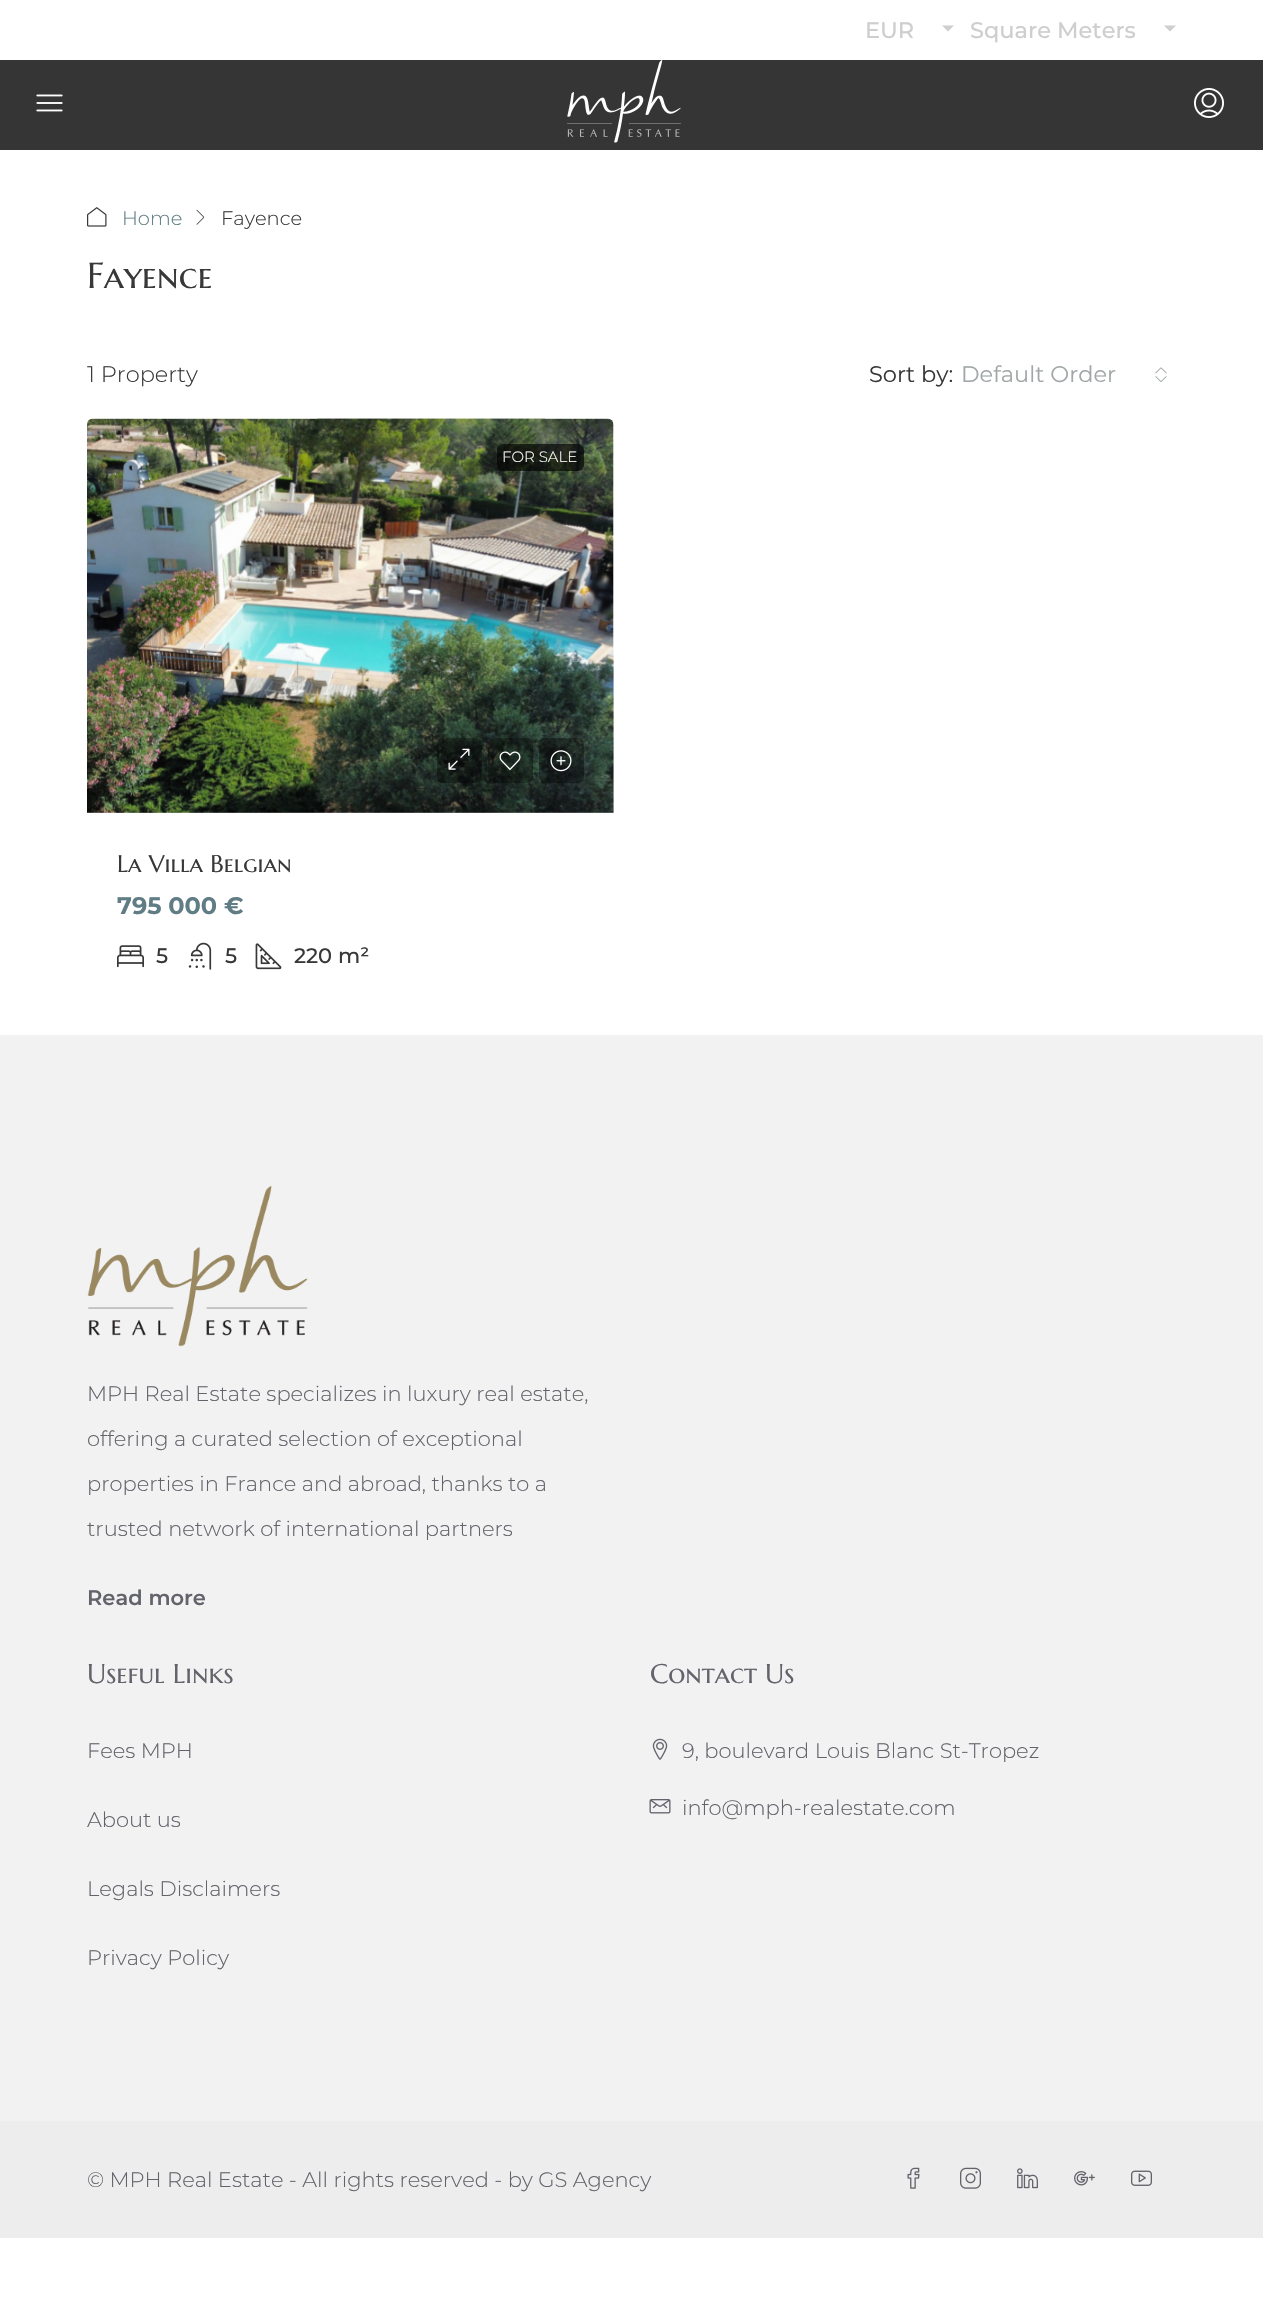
static SkFont makeFont(const char* family, int weight, float size, bool italic = false) {
  SkFontStyle style(weight, SkFontStyle::kNormal_Width,
    italic ? SkFontStyle::kItalic_Slant : SkFontStyle::kUpright_Slant);
  SkFont result(fontMgr->matchFamilyStyle(family, style), size);
  result.setSubpixel(true);
  return result;
}

static void text(SkCanvas* c, const char* s, float x, float y, const SkFont& font, SkColor color) {
  SkPaint ink(SkColor4f::FromColor(color));
  ink.setAntiAlias(true);
  c->drawString(s, x, y, font, ink);
}

static void box(SkCanvas* c, float l, float t, float r, float b, SkColor color) {
  SkPaint ink(SkColor4f::FromColor(color));
  ink.setAntiAlias(true);
  c->drawRect(SkRect::MakeLTRB(l, t, r, b), ink);
}

static void roundBox(SkCanvas* c, float l, float t, float r, float b, float radius, SkColor color) {
  SkPaint ink(SkColor4f::FromColor(color));
  ink.setAntiAlias(true);
  c->drawRoundRect(SkRect::MakeLTRB(l, t, r, b), radius, radius, ink);
}

static void picture(SkCanvas* c, const char* path, float l, float t, float r, float b) {
  auto image = SkImages::DeferredFromEncodedData(SkData::MakeFromFileName(path));
  c->drawImageRect(image, SkRect::MakeLTRB(l, t, r, b), SkSamplingOptions());
}

void draw(SkCanvas* c) {
  SkPaint paint;
  paint.setAntiAlias(true);
  c->clear(0xffffffff);
  SkFont face1 = makeFont("Montserrat", 500, 22.5f);
  text(c, "EUR", 865, 38, face1, 0xffcecece);
  paint.setColor(0xffcecece);
  c->drawPath(SkPathBuilder().moveTo(942, 25.5f).lineTo(954, 25.5f).lineTo(948, 31.5f).close().detach(), paint);
  text(c, "Square Meters", 970, 38, face1, 0xffcecece);
  c->drawPath(SkPathBuilder().moveTo(1164, 25.5f).lineTo(1176, 25.5f).lineTo(1170, 31.5f).close().detach(), paint);
  box(c, 0, 60, 1263, 150, 0xff353535);
  picture(c, "img_01.png", 36, 94, 63, 112);
  picture(c, "img_02.png", 567, 60, 681, 143);
  picture(c, "img_03.png", 1194, 88, 1224, 118);
  picture(c, "img_04.png", 87, 207, 107, 227);
  SkFont face2 = makeFont("Montserrat", 300, 19.5f);
  text(c, "Home", 122, 225, face2, 0xff607c84);
  picture(c, "img_05.png", 196, 209, 205, 225);
  text(c, "Fayence", 221, 225, face2, 0xff383838);
  SkFont face3 = makeFont("Marcellus SC", 400, 36);
  text(c, "Fayence", 87, 288, face3, 0xff383838);
  SkFont face4 = makeFont("Montserrat", 300, 22.5f);
  text(c, "1 Property", 87, 382, face4, 0xff383838);
  SkFont face5 = makeFont("Montserrat", 400, 22.5f);
  text(c, "Sort by:", 869, 382, face5, 0xff383838);
  text(c, "Default Order", 961, 382, face5, 0xffa1a7a8);
  picture(c, "img_06.png", 1155, 367, 1167, 382);
  picture(c, "img_07.png", 87, 418, 614, 813);
  roundBox(c, 497, 444, 584, 471, 6, 0xa6000000);
  SkFont face6 = makeFont("Montserrat", 300, 15);
  text(c, "FOR SALE", 502, 462, face6, 0xffffffff);
  roundBox(c, 437, 738, 482, 783, 6, 0x59000000);
  picture(c, "img_08.png", 448, 748, 470, 770);
  roundBox(c, 488, 738, 533, 783, 6, 0x59000000);
  picture(c, "img_09.png", 499, 751, 521, 770);
  roundBox(c, 539, 738, 584, 783, 6, 0x59000000);
  picture(c, "img_10.png", 550, 750, 572, 772);
  SkFont face7 = makeFont("Marcellus SC", 400, 24);
  text(c, "La Villa Belgian", 117, 872, face7, 0xff383838);
  SkFont face8 = makeFont("Montserrat", 700, 24);
  text(c, "795 000 €", 117, 914, face8, 0xff607c84);
  picture(c, "img_11.png", 117, 945, 144, 968);
  SkFont face9 = makeFont("Montserrat", 500, 21);
  text(c, "5", 156, 963, face9, 0xff383838);
  picture(c, "img_12.png", 188, 942, 212, 970);
  text(c, "5", 225, 963, face9, 0xff383838);
  picture(c, "img_13.png", 255, 943, 282, 970);
  text(c, "220", 294, 963, face9, 0xff383838);
  text(c, "m²", 338, 963, face9, 0xff383838);
  box(c, 0, 1035, 1263, 2121, 0xfff2f2f2);
  picture(c, "img_14.png", 87, 1185, 308, 1347);
  SkFont face10 = makeFont("Montserrat", 300, 21);
  text(c, "MPH Real Estate specializes in luxury real estate,", 87, 1401, face10, 0xff63636b);
  text(c, "offering a curated selection of exceptional", 87, 1446, face10, 0xff63636b);
  text(c, "properties in France and abroad, thanks to a", 87, 1491, face10, 0xff63636b);
  text(c, "trusted network of international partners", 87, 1536, face10, 0xff63636b);
  SkFont face11 = makeFont("Montserrat", 600, 21);
  text(c, "Read more", 87, 1605, face11, 0xff63636b);
  SkFont face12 = makeFont("Marcellus SC", 400, 27);
  text(c, "Useful Links", 87, 1683, face12, 0xff63636b);
  text(c, "Fees MPH", 87, 1758, face10, 0xff63636b);
  text(c, "About us", 87, 1827, face10, 0xff63636b);
  text(c, "Legals Disclaimers", 87, 1896, face10, 0xff63636b);
  text(c, "Privacy Policy", 87, 1965, face10, 0xff63636b);
  text(c, "Contact Us", 650, 1683, face12, 0xff63636b);
  picture(c, "img_15.png", 652, 1738, 668, 1760);
  text(c, "9, boulevard Louis Blanc St-Tropez", 682, 1758, face10, 0xff63636b);
  picture(c, "img_16.png", 649, 1799, 671, 1814);
  text(c, "info@mph-realestate.com", 682, 1815, face10, 0xff63636b);
  box(c, 0, 2121, 1263, 2238, 0xffededed);
  text(c, "© MPH Real Estate - All rights reserved - by GS Agency", 87, 2187, face10, 0xff63636b);
  picture(c, "img_17.png", 907, 2167, 920, 2189);
  picture(c, "img_18.png", 960, 2167, 981, 2189);
  picture(c, "img_19.png", 1017, 2168, 1038, 2189);
  picture(c, "img_20.png", 1074, 2171, 1095, 2186);
  picture(c, "img_21.png", 1131, 2170, 1152, 2186);
}
